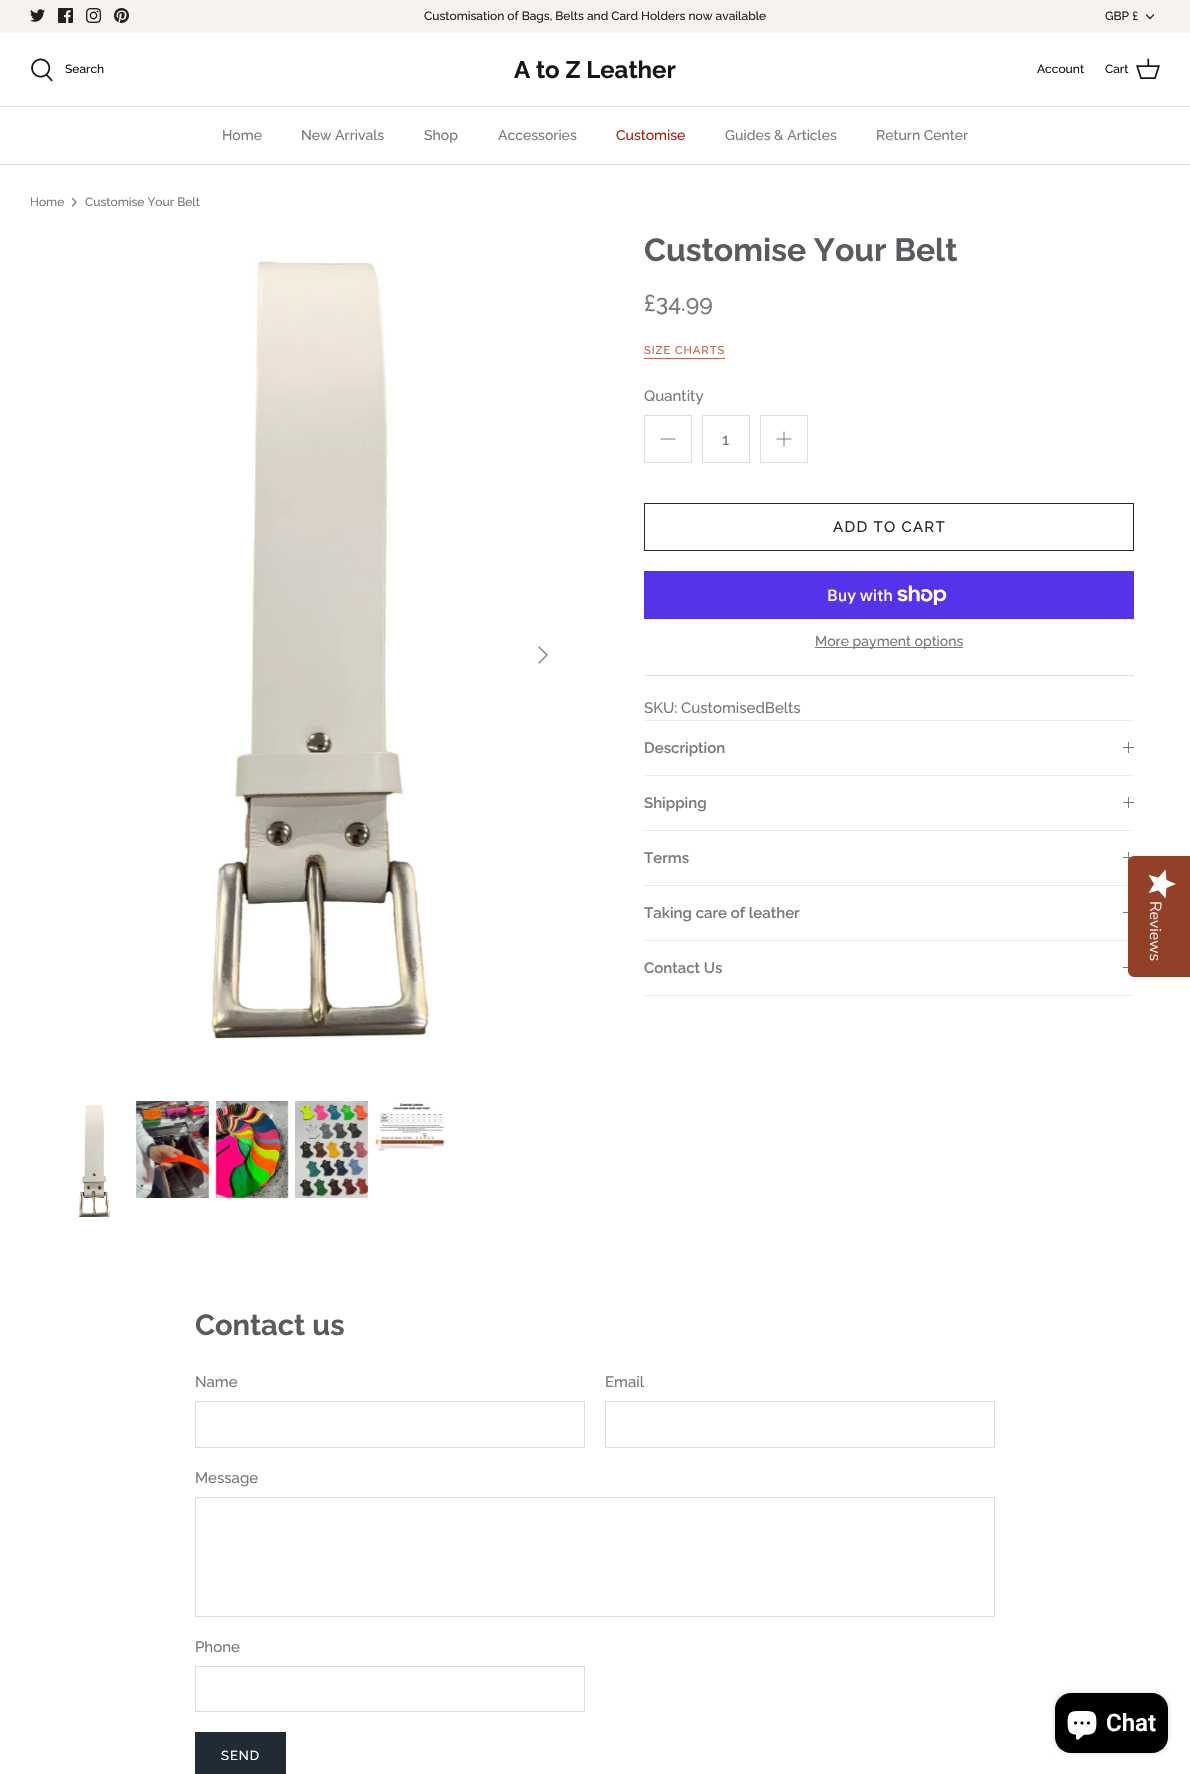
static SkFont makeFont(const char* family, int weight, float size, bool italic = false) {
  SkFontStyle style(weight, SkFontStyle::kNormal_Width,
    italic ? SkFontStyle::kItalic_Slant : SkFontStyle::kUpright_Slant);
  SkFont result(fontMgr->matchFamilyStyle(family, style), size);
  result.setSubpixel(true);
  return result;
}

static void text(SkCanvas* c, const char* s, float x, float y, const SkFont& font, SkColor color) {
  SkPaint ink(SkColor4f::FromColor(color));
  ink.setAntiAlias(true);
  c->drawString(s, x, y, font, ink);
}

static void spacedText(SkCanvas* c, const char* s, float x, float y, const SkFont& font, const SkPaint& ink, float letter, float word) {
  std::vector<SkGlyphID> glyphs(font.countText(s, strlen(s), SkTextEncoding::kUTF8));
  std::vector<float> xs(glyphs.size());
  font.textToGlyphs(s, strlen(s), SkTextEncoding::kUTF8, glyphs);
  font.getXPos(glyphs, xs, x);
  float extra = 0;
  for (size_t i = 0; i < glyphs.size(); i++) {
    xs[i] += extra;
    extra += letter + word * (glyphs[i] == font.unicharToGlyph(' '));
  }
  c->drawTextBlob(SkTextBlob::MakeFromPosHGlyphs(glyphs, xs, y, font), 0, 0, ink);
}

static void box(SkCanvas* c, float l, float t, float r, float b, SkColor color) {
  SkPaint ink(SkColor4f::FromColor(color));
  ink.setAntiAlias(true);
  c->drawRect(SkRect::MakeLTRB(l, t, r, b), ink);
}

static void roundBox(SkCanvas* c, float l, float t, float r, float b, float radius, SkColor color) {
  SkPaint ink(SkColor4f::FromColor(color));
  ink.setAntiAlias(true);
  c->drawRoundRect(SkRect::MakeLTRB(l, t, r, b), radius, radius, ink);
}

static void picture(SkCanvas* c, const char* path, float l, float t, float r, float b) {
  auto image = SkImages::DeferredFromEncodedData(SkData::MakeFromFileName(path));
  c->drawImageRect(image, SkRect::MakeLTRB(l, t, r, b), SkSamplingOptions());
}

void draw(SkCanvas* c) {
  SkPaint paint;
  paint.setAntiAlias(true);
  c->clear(0xffffffff);
  box(c, 0, 0, 1190, 33, 0xfff7f1f0);
  picture(c, "img_01.png", 30, 9, 45, 22);
  picture(c, "img_02.png", 58, 8, 73, 23);
  picture(c, "img_03.png", 86, 8, 101, 23);
  picture(c, "img_04.png", 114, 8, 129, 23);
  SkFont face1 = makeFont("Raleway", 500, 12);
  text(c, "Customisation of Bags, Belts and Card Holders now available", 424, 20, face1, 0xff212121);
  text(c, "GBP £", 1105, 20, face1, 0xff212121);
  paint.setStyle(SkPaint::kStroke_Style);
  paint.setStrokeWidth(1.2f);
  paint.setStrokeCap(SkPaint::kRound_Cap);
  paint.setStrokeJoin(SkPaint::kRound_Join);
  paint.setColor(0xff212121);
  c->drawPath(SkPathBuilder().moveTo(1146.5f, 15).lineTo(1150, 18.5f).lineTo(1153.5f, 15).detach(), paint);
  box(c, 0, 106, 1190, 107, 0xffdfe3e8);
  picture(c, "img_05.png", 31, 58, 53, 82);
  text(c, "Search", 65, 73, face1, 0xff171717);
  SkFont face2 = makeFont("Raleway", 700, 24);
  text(c, "A to Z Leather", 514, 78, face2, 0xff171717);
  text(c, "Account", 1037, 73, face1, 0xff171717);
  text(c, "Cart", 1105, 73, face1, 0xff171717);
  picture(c, "img_06.png", 1136, 58, 1160, 79);
  box(c, 0, 164, 1190, 165, 0xffdfe3e8);
  SkFont face3 = makeFont("Raleway", 500, 14);
  text(c, "Home", 222, 140, face3, 0xff787a7c);
  text(c, "New Arrivals", 301, 140, face3, 0xff787a7c);
  text(c, "Shop", 424, 140, face3, 0xff787a7c);
  text(c, "Accessories", 498, 140, face3, 0xff787a7c);
  text(c, "Customise", 616, 140, face3, 0xffb61d0f);
  text(c, "Guides & Articles", 725, 140, face3, 0xff787a7c);
  text(c, "Return Center", 876, 140, face3, 0xff787a7c);
  text(c, "Home", 30, 206, face1, 0xff787a7c);
  paint.setColor(0xff787a7c);
  c->drawPath(SkPathBuilder().moveTo(72.5f, 206).lineTo(76, 202).lineTo(72.5f, 198.5f).detach(), paint);
  text(c, "Customise Your Belt", 85, 206, face1, 0xff787a7c);
  picture(c, "img_07.png", 209, 260, 430, 1039);
  paint.setStrokeWidth(1.3f);
  c->drawPath(SkPathBuilder().moveTo(539, 663).lineTo(547, 655).lineTo(539, 647).detach(), paint);
  picture(c, "img_08.png", 79, 1105, 110, 1217);
  picture(c, "img_09.png", 135, 1101, 209, 1198);
  picture(c, "img_10.png", 215, 1101, 289, 1199);
  picture(c, "img_11.png", 295, 1101, 368, 1198);
  picture(c, "img_12.png", 375, 1103, 446, 1151);
  SkFont face4 = makeFont("Raleway", 700, 32);
  text(c, "Customise Your Belt", 644, 261, face4, 0xff595b5e);
  SkFont face5 = makeFont("Raleway", 500, 23);
  text(c, "£34.99", 644, 311, face5, 0xff787a7c);
  SkFont face6 = makeFont("Raleway", 500, 11.25f);
  paint.setStyle(SkPaint::kFill_Style);
  paint.setColor(0xffc16452);
  spacedText(c, "SIZE CHARTS", 644, 354, face6, paint, 0.9f, 0);
  box(c, 644, 358, 725, 359, 0xffc16452);
  SkFont face7 = makeFont("Raleway", 500, 15);
  text(c, "Quantity", 644, 401, face7, 0xff787a7c);
  paint.setStyle(SkPaint::kStroke_Style);
  paint.setStrokeWidth(1);
  paint.setStrokeCap(SkPaint::kButt_Cap);
  paint.setStrokeJoin(SkPaint::kMiter_Join);
  paint.setColor(0xffdddede);
  c->drawRect(SkRect::MakeLTRB(644.5f, 415.5f, 691.5f, 462.5f), paint);
  paint.setStrokeCap(SkPaint::kRound_Cap);
  paint.setStrokeJoin(SkPaint::kRound_Join);
  paint.setColor(0xff787a7c);
  c->drawPath(SkPathBuilder().moveTo(661, 439).lineTo(675, 439).detach(), paint);
  paint.setStrokeCap(SkPaint::kButt_Cap);
  paint.setStrokeJoin(SkPaint::kMiter_Join);
  paint.setColor(0xffdddede);
  c->drawRect(SkRect::MakeLTRB(702.5f, 415.5f, 749.5f, 462.5f), paint);
  SkFont face8 = makeFont("Raleway", 500, 16);
  text(c, "1", 722, 445, face8, 0xff787a7c);
  c->drawRect(SkRect::MakeLTRB(760.5f, 415.5f, 807.5f, 462.5f), paint);
  paint.setStrokeCap(SkPaint::kRound_Cap);
  paint.setStrokeJoin(SkPaint::kRound_Join);
  paint.setColor(0xff787a7c);
  c->drawPath(SkPathBuilder().moveTo(784, 432).lineTo(784, 446).moveTo(777, 439).lineTo(791, 439).detach(), paint);
  paint.setStrokeCap(SkPaint::kButt_Cap);
  paint.setStrokeJoin(SkPaint::kMiter_Join);
  paint.setColor(0xff212b36);
  c->drawRect(SkRect::MakeLTRB(644.5f, 503.5f, 1133.5f, 550.5f), paint);
  paint.setStyle(SkPaint::kFill_Style);
  spacedText(c, "ADD TO CART", 833, 532, face7, paint, 1.25f, 0);
  box(c, 644, 571, 1134, 619, 0xff5433eb);
  SkFont face9 = makeFont("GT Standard", 500, 16);
  text(c, "Buy with", 827, 601, face9, 0xffffffff);
  picture(c, "img_13.png", 897, 585, 947, 605);
  box(c, 815, 647, 963, 648, 0xff787a7c);
  text(c, "More payment options", 815, 646, face3, 0xff787a7c);
  box(c, 644, 675, 1134, 676, 0xffe2e2e2);
  text(c, "SKU: CustomisedBelts", 644, 713, face7, 0xff787a7c);
  box(c, 644, 720, 1134, 721, 0xffebebeb);
  box(c, 644, 775, 1134, 776, 0xffebebeb);
  SkFont face10 = makeFont("Raleway", 600, 15);
  text(c, "Description", 644, 753, face10, 0xff787a7c);
  box(c, 1128, 742, 1129, 753, 0xff787a7c);
  box(c, 1123, 747, 1134, 748, 0xff787a7c);
  box(c, 644, 830, 1134, 831, 0xffebebeb);
  text(c, "Shipping", 644, 808, face10, 0xff787a7c);
  box(c, 1128, 797, 1129, 808, 0xff787a7c);
  box(c, 1123, 802, 1134, 803, 0xff787a7c);
  box(c, 644, 885, 1134, 886, 0xffebebeb);
  text(c, "Terms", 644, 863, face10, 0xff787a7c);
  box(c, 1128, 852, 1129, 863, 0xff787a7c);
  box(c, 1123, 857, 1134, 858, 0xff787a7c);
  box(c, 644, 940, 1134, 941, 0xffebebeb);
  text(c, "Taking care of leather", 644, 918, face10, 0xff787a7c);
  box(c, 1123, 912, 1134, 913, 0xff787a7c);
  box(c, 644, 995, 1134, 996, 0xffebebeb);
  text(c, "Contact Us", 644, 973, face10, 0xff787a7c);
  box(c, 1123, 967, 1134, 968, 0xff787a7c);
  SkFont face11 = makeFont("Raleway", 700, 29);
  text(c, "Contact us", 195, 1335, face11, 0xff595b5e);
  text(c, "Name", 195, 1387, face7, 0xff787a7c);
  paint.setStyle(SkPaint::kStroke_Style);
  paint.setColor(0xffdddede);
  c->drawRect(SkRect::MakeLTRB(195.5f, 1401.5f, 584.5f, 1447.5f), paint);
  text(c, "Email", 605, 1387, face7, 0xff787a7c);
  c->drawRect(SkRect::MakeLTRB(605.5f, 1401.5f, 994.5f, 1447.5f), paint);
  text(c, "Message", 195, 1483, face7, 0xff787a7c);
  c->drawRect(SkRect::MakeLTRB(195.5f, 1497.5f, 994.5f, 1616.5f), paint);
  text(c, "Phone", 195, 1652, face7, 0xff787a7c);
  c->drawRect(SkRect::MakeLTRB(195.5f, 1666.5f, 584.5f, 1711.5f), paint);
  box(c, 195, 1732, 286, 1774, 0xff212b36);
  SkFont face12 = makeFont("Raleway", 500, 13);
  paint.setStyle(SkPaint::kFill_Style);
  paint.setColor(0xffffffff);
  spacedText(c, "SEND", 221, 1760, face12, paint, 1, 0);
  paint.setColor(0xff924027);
  c->drawPath(SkPathBuilder().moveTo(1190, 856).lineTo(1190, 977).lineTo(1134, 977).cubicTo(1131, 977, 1128, 974, 1128, 971).lineTo(1128, 862).cubicTo(1128, 859, 1131, 856, 1134, 856).close().detach(), paint);
  {
    const SkColor colors[] = {0xfffefefe, 0xffeaeaea};
    const float stops[] = {1, 1};
    const SkPoint ends[] = {{1176, 870}, {1176, 898}};
    paint.setShader(SkGradientShader::MakeLinear(ends, colors, stops, 2, SkTileMode::kClamp));
    paint.setAlpha(255);
  }
  c->drawPath(SkPathBuilder().moveTo(1154, 884).lineTo(1148.5f, 893).lineTo(1158.5f, 890.5f).lineTo(1165.5f, 898.5f).lineTo(1166.5f, 888).lineTo(1176, 884).lineTo(1166.5f, 880).lineTo(1165.5f, 869.5f).lineTo(1158.5f, 877.5f).lineTo(1148.5f, 875).close().detach(), paint);
  SkFont face13 = makeFont("Nunito Sans", 300, 16);
  c->save();
  c->rotate(90, 1150, 901);
  text(c, "Reviews", 1150, 901, face13, 0xffffffff);
  c->restore();
  paint.setShader(nullptr);
  paint.setColor(0x26000000);
  paint.setMaskFilter(SkMaskFilter::MakeBlur(kNormal_SkBlurStyle, 2.5f));
  c->drawRoundRect(SkRect::MakeLTRB(1055, 1693, 1168, 1753), 16, 16, paint);
  paint.setMaskFilter(nullptr);
  roundBox(c, 1055, 1693, 1168, 1753, 16, 0xff000000);
  picture(c, "img_14.png", 1067, 1711, 1097, 1740);
  SkFont face14 = makeFont("Roboto", 600, 24);
  text(c, "Chat", 1106, 1731, face14, 0xffffffff);
}
